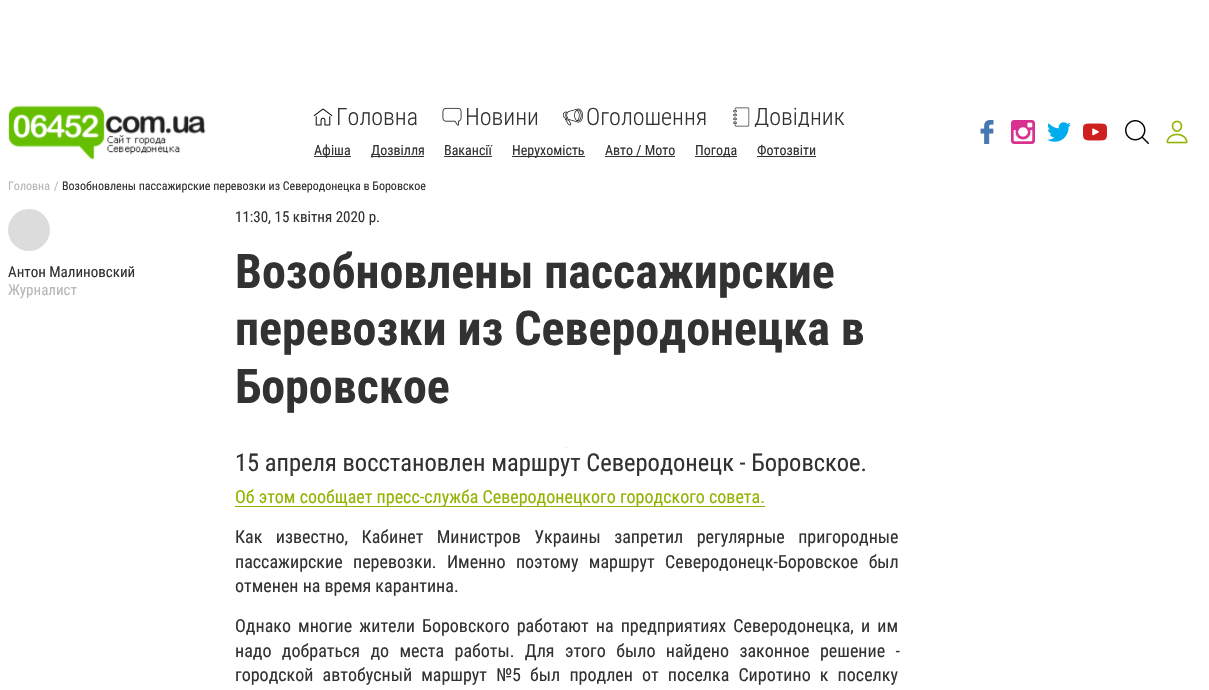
static SkFont makeFont(const char* family, int weight, float size, bool italic = false) {
  SkFontStyle style(weight, SkFontStyle::kNormal_Width,
    italic ? SkFontStyle::kItalic_Slant : SkFontStyle::kUpright_Slant);
  SkFont result(fontMgr->matchFamilyStyle(family, style), size);
  result.setSubpixel(true);
  return result;
}

static void text(SkCanvas* c, const char* s, float x, float y, const SkFont& font, SkColor color) {
  SkPaint ink(SkColor4f::FromColor(color));
  ink.setAntiAlias(true);
  c->drawString(s, x, y, font, ink);
}

static void spacedText(SkCanvas* c, const char* s, float x, float y, const SkFont& font, const SkPaint& ink, float letter, float word) {
  std::vector<SkGlyphID> glyphs(font.countText(s, strlen(s), SkTextEncoding::kUTF8));
  std::vector<float> xs(glyphs.size());
  font.textToGlyphs(s, strlen(s), SkTextEncoding::kUTF8, glyphs);
  font.getXPos(glyphs, xs, x);
  float extra = 0;
  for (size_t i = 0; i < glyphs.size(); i++) {
    xs[i] += extra;
    extra += letter + word * (glyphs[i] == font.unicharToGlyph(' '));
  }
  c->drawTextBlob(SkTextBlob::MakeFromPosHGlyphs(glyphs, xs, y, font), 0, 0, ink);
}

static void box(SkCanvas* c, float l, float t, float r, float b, SkColor color) {
  SkPaint ink(SkColor4f::FromColor(color));
  ink.setAntiAlias(true);
  c->drawRect(SkRect::MakeLTRB(l, t, r, b), ink);
}

static void picture(SkCanvas* c, const char* path, float l, float t, float r, float b) {
  auto image = SkImages::DeferredFromEncodedData(SkData::MakeFromFileName(path));
  c->drawImageRect(image, SkRect::MakeLTRB(l, t, r, b), SkSamplingOptions());
}

void draw(SkCanvas* c) {
  SkPaint paint;
  paint.setAntiAlias(true);
  c->clear(0xffffffff);
  picture(c, "img_01.png", 8, 105, 206, 160);
  picture(c, "img_02.png", 313, 108, 333, 126);
  SkFont face1 = makeFont("Roboto Condensed", 300, 24);
  text(c, "Головна", 336, 125, face1, 0xff323232);
  picture(c, "img_03.png", 442, 107, 462, 126);
  text(c, "Новини", 465, 125, face1, 0xff323232);
  picture(c, "img_04.png", 563, 108, 583, 126);
  text(c, "Оголошення", 586, 125, face1, 0xff323232);
  picture(c, "img_05.png", 733, 107, 750, 127);
  c->save();
  c->clipRect(SkRect::MakeLTRB(731, 107, 845, 127));
  text(c, "Довідник", 754, 125, face1, 0xff323232);
  c->restore();
  box(c, 314, 156, 351, 157, 0xff323232);
  SkFont face2 = makeFont("Roboto Condensed", 400, 14);
  text(c, "Афіша", 314, 155, face2, 0xff323232);
  box(c, 371, 156, 424, 157, 0xff323232);
  text(c, "Дозвілля", 371, 155, face2, 0xff323232);
  text(c, "Вакансії", 444, 155, face2, 0xff323232);
  box(c, 444, 156, 492, 157, 0xff323232);
  box(c, 512, 156, 585, 157, 0xff323232);
  text(c, "Нерухомість", 512, 155, face2, 0xff323232);
  text(c, "Авто / Мото", 605, 155, face2, 0xff323232);
  box(c, 605, 156, 675, 157, 0xff323232);
  box(c, 695, 156, 737, 157, 0xff323232);
  text(c, "Погода", 695, 155, face2, 0xff323232);
  text(c, "Фотозвіти", 757, 155, face2, 0xff323232);
  box(c, 757, 156, 816, 157, 0xff323232);
  picture(c, "img_06.png", 980, 120, 994, 144);
  picture(c, "img_07.png", 1011, 120, 1035, 144);
  picture(c, "img_08.png", 1047, 122, 1071, 142);
  picture(c, "img_09.png", 1083, 123, 1107, 141);
  picture(c, "img_10.png", 1125, 120, 1149, 144);
  picture(c, "img_11.png", 1166, 120, 1188, 144);
  SkFont face3 = makeFont("Roboto Condensed", 400, 12);
  text(c, "Головна", 8, 190, face3, 0xffb7b7b7);
  text(c, "/", 54, 190, face3, 0xffb7b7b7);
  text(c, "Возобновлены пассажирские перевозки из Северодонецка в Боровское", 62, 190, face3, 0xff323232);
  paint.setColor(0xffdcdcdc);
  c->drawCircle(29, 230, 21, paint);
  SkFont face4 = makeFont("Roboto Condensed", 400, 15);
  text(c, "Антон Малиновский", 8, 277, face4, 0xff323232);
  text(c, "Журналист", 8, 295, face4, 0xffb7b7b7);
  text(c, "11:30, 15 квітня 2020 р.", 235, 222, face4, 0xff323232);
  SkFont face5 = makeFont("Roboto Condensed", 700, 48);
  text(c, "Возобновлены пассажирские", 235, 288, face5, 0xff323232);
  text(c, "перевозки из Северодонецка в", 235, 345, face5, 0xff323232);
  text(c, "Боровское", 235, 403, face5, 0xff323232);
  box(c, 566, 447, 567, 448, 0xffdcdcdc);
  SkFont face6 = makeFont("Roboto Condensed", 400, 24.5f);
  text(c, "15 апреля восстановлен маршрут Северодонецк - Боровское.", 235, 471, face6, 0xff323232);
  box(c, 235, 506, 765, 507, 0xff90b400);
  SkFont face7 = makeFont("Roboto Condensed", 400, 18);
  text(c, "Об этом сообщает пресс-служба Северодонецкого городского совета.", 235, 503, face7, 0xff90b400);
  paint.setColor(0xff323232);
  spacedText(c, "Как известно, Кабинет Министров Украины запретил регулярные пригородные", 235, 543, face7, paint, 0, 9.25f);
  spacedText(c, "пассажирские перевозки. Именно поэтому маршрут Северодонецк-Боровское был", 235, 568, face7, paint, 0, 6.25f);
  text(c, "отменен на время карантина.", 235, 592, face7, 0xff323232);
  spacedText(c, "Однако многие жители Боровского работают на предприятиях Северодонецка, и им", 235, 632, face7, paint, 0, 3);
  spacedText(c, "надо добраться до места работы. Для этого было найдено законное решение -", 235, 657, face7, paint, 0, 6.25f);
  spacedText(c, "городской автобусный маршрут №5 был продлен от поселка Сиротино к поселку", 235, 681, face7, paint, 0, 5);
}
